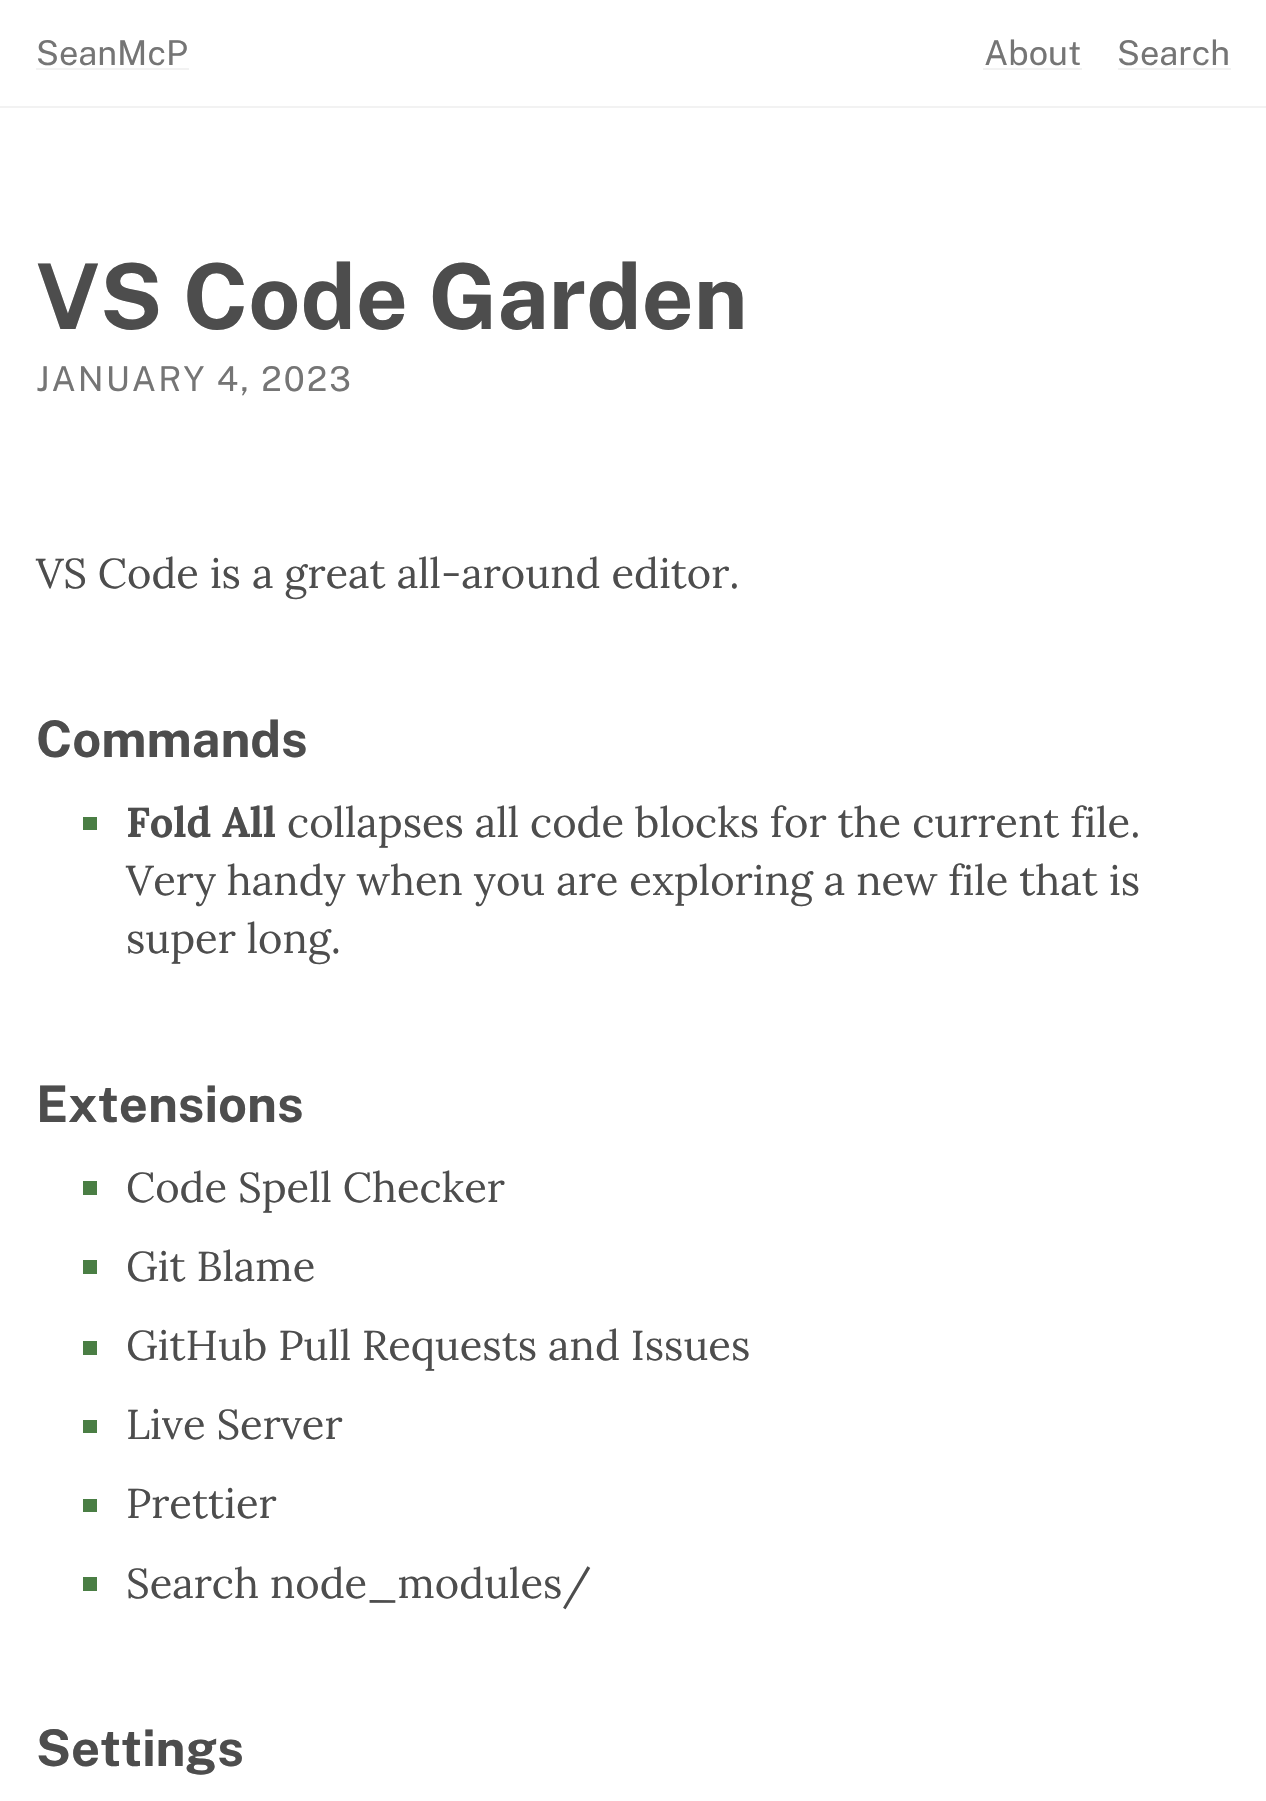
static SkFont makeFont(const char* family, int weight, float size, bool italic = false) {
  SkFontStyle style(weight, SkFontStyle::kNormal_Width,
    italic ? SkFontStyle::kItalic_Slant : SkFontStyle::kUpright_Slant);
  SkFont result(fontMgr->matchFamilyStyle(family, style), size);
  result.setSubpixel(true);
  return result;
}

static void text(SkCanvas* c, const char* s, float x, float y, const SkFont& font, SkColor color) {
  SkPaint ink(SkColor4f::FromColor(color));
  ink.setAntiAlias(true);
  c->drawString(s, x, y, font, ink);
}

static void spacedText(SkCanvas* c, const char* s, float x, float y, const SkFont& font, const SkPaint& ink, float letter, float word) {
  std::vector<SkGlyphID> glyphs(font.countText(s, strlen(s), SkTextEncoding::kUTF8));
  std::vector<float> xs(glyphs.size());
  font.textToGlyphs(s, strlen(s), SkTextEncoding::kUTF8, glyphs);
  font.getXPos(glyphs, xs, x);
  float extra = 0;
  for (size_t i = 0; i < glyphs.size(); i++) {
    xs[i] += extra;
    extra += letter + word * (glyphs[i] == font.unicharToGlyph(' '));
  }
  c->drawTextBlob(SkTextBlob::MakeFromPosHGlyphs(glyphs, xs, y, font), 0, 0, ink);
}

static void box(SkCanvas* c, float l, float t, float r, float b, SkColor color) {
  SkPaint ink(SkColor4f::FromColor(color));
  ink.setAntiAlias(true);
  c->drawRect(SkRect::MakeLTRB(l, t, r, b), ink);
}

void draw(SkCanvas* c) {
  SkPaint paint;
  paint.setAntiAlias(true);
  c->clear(0xffffffff);
  box(c, 0, 106, 1266, 108, 0xfff2f2f2);
  SkFont face1 = makeFont("Public Sans", 100, 34.25f);
  text(c, "SeanMcP", 36, 65, face1, 0xff757575);
  box(c, 36, 68, 189, 70, 0xfff2f2f2);
  text(c, "About", 984, 65, face1, 0xff757575);
  box(c, 983, 68, 1082, 70, 0xfff2f2f2);
  text(c, "Search", 1117, 65, face1, 0xff757575);
  box(c, 1118, 68, 1231, 70, 0xfff2f2f2);
  SkFont face2 = makeFont("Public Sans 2", 100, 90.75f);
  text(c, "VS Code Garden", 36, 329, face2, 0xff4d4d4d);
  paint.setColor(0xff757575);
  spacedText(c, "JANUARY 4, 2023", 36, 391, face1, paint, 2.1f, 0);
  SkFont face3 = makeFont("Lora", 400, 41.7f);
  text(c, "VS Code is a great all-around editor.", 36, 588, face3, 0xff4d4d4d);
  SkFont face4 = makeFont("Public Sans 2", 100, 50.5f);
  text(c, "Commands", 36, 757, face4, 0xff4d4d4d);
  box(c, 83, 817, 97, 830, 0xff4a7e44);
  SkFont face5 = makeFont("Lora", 700, 41.7f);
  text(c, "Fold All", 126, 837, face5, 0xff4d4d4d);
  text(c, "collapses all code blocks for the current file.", 287, 837, face3, 0xff4d4d4d);
  text(c, "Very handy when you are exploring a new file that is", 126, 895, face3, 0xff4d4d4d);
  text(c, "super long.", 126, 953, face3, 0xff4d4d4d);
  text(c, "Extensions", 36, 1122, face4, 0xff4d4d4d);
  box(c, 83, 1181, 97, 1195, 0xff4a7e44);
  text(c, "Code Spell Checker", 126, 1202, face3, 0xff4d4d4d);
  box(c, 83, 1260, 97, 1274, 0xff4a7e44);
  text(c, "Git Blame", 126, 1281, face3, 0xff4d4d4d);
  box(c, 83, 1341, 97, 1355, 0xff4a7e44);
  text(c, "GitHub Pull Requests and Issues", 126, 1360, face3, 0xff4d4d4d);
  box(c, 83, 1420, 97, 1433, 0xff4a7e44);
  text(c, "Live Server", 126, 1439, face3, 0xff4d4d4d);
  box(c, 83, 1499, 97, 1512, 0xff4a7e44);
  text(c, "Prettier", 126, 1518, face3, 0xff4d4d4d);
  box(c, 83, 1577, 97, 1591, 0xff4a7e44);
  text(c, "Search node_modules/", 126, 1598, face3, 0xff4d4d4d);
  text(c, "Settings", 36, 1766, face4, 0xff4d4d4d);
}
